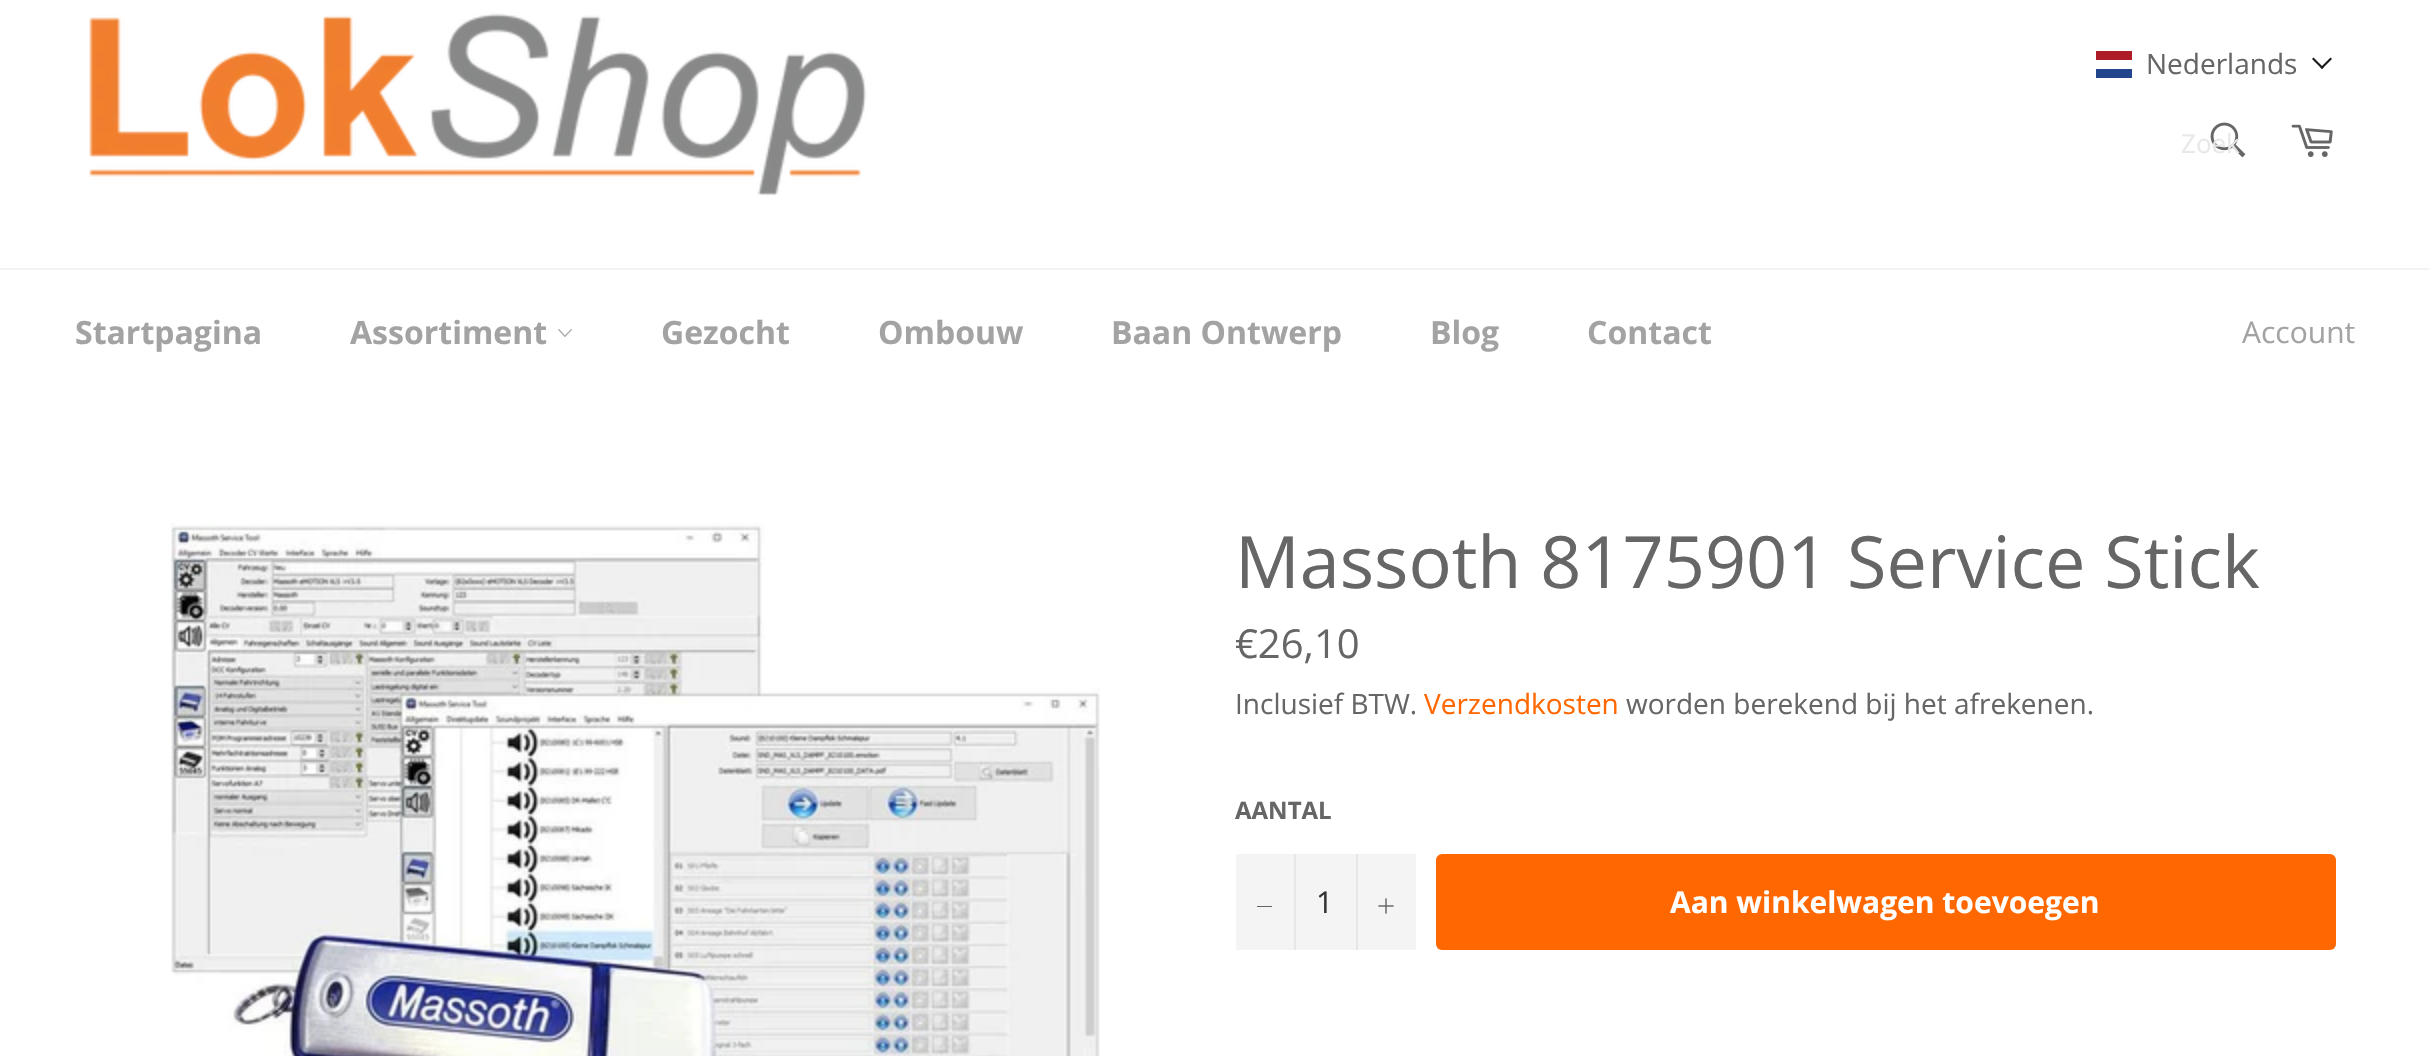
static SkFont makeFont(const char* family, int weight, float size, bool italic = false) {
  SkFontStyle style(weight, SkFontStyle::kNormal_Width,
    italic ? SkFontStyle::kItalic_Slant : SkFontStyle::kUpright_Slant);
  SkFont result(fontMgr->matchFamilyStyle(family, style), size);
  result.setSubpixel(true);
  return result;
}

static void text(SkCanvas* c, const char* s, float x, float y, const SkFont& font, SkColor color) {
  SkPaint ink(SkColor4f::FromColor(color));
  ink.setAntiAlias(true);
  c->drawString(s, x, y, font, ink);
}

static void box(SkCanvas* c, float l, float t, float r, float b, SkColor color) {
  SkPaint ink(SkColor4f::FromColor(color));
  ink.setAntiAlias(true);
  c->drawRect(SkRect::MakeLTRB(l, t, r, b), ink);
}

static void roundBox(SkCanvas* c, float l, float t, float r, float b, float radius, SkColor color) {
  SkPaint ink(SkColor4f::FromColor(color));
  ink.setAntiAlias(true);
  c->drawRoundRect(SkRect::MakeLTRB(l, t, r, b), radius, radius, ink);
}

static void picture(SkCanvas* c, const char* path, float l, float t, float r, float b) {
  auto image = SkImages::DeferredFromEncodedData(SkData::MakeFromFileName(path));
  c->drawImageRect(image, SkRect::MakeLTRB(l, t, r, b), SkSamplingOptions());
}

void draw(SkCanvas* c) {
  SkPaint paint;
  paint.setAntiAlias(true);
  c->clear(0xffffffff);
  picture(c, "img_01.png", 89, 13, 867, 196);
  box(c, 2096, 69, 2132, 78, 0xff21468b);
  box(c, 2096, 51, 2132, 60, 0xffae1c28);
  SkFont face1 = makeFont("Open Sans", 400, 28);
  text(c, "Nederlands", 2146, 74, face1, 0xff666666);
  paint.setColor(0xff1a1a1a);
  c->drawPath(SkPathBuilder().moveTo(2330.5f, 57.5f).lineTo(2332, 59).lineTo(2322, 69).lineTo(2320.5f, 67.5f).close().detach(), paint);
  c->drawPath(SkPathBuilder().moveTo(2313.5f, 57.5f).lineTo(2323.5f, 67.5f).lineTo(2322, 69).lineTo(2312, 59).close().detach(), paint);
  picture(c, "img_02.png", 2210, 122, 2246, 158);
  SkFont face2 = makeFont("Open Sans", 400, 26);
  text(c, "Zoek", 2181, 153, face2, 0xffe8e8e8);
  picture(c, "img_03.png", 2291, 124, 2333, 157);
  box(c, 0, 268, 2429, 270, 0xfff2f2f2);
  SkFont face3 = makeFont("Open Sans", 700, 32);
  text(c, "Startpagina", 75, 344, face3, 0xffa3a3a3);
  text(c, "Assortiment", 350, 344, face3, 0xffa3a3a3);
  picture(c, "img_04.png", 558, 328, 572, 337);
  text(c, "Gezocht", 661, 344, face3, 0xffa3a3a3);
  text(c, "Ombouw", 878, 344, face3, 0xffa3a3a3);
  text(c, "Baan Ontwerp", 1111, 344, face3, 0xffa3a3a3);
  text(c, "Blog", 1430, 344, face3, 0xffa3a3a3);
  text(c, "Contact", 1587, 344, face3, 0xffa3a3a3);
  SkFont face4 = makeFont("Open Sans", 400, 30);
  text(c, "Account", 2242, 343, face4, 0xffa3a3a3);
  picture(c, "img_05.png", 171, 523, 1100, 1056);
  SkFont face5 = makeFont("Open Sans", 400, 72);
  text(c, "Massoth 8175901 Service Stick", 1235, 588, face5, 0xff666666);
  SkFont face6 = makeFont("Open Sans", 400, 40);
  text(c, "€26,10", 1235, 658, face6, 0xff666666);
  text(c, "Inclusief BTW.", 1235, 714, face1, 0xff666666);
  text(c, "Verzendkosten", 1424, 714, face1, 0xffff6700);
  text(c, "worden berekend bij het afrekenen.", 1626, 714, face1, 0xff666666);
  SkFont face7 = makeFont("Open Sans", 700, 24);
  text(c, "AANTAL", 1235, 819, face7, 0xff666666);
  box(c, 1236, 854, 1416, 950, 0xfff4f4f4);
  box(c, 1294, 854, 1296, 950, 0xffe7e7e7);
  box(c, 1257, 906, 1272, 907, 0xff666666);
  text(c, "1", 1316, 913, face4, 0xff333333);
  box(c, 1356, 854, 1358, 950, 0xffe7e7e7);
  picture(c, "img_06.png", 1378, 898, 1394, 914);
  roundBox(c, 1436, 854, 2336, 950, 6, 0xffff6700);
  SkFont face8 = makeFont("Open Sans", 700, 30);
  text(c, "Aan winkelwagen toevoegen", 1670, 913, face8, 0xffffffff);
}
